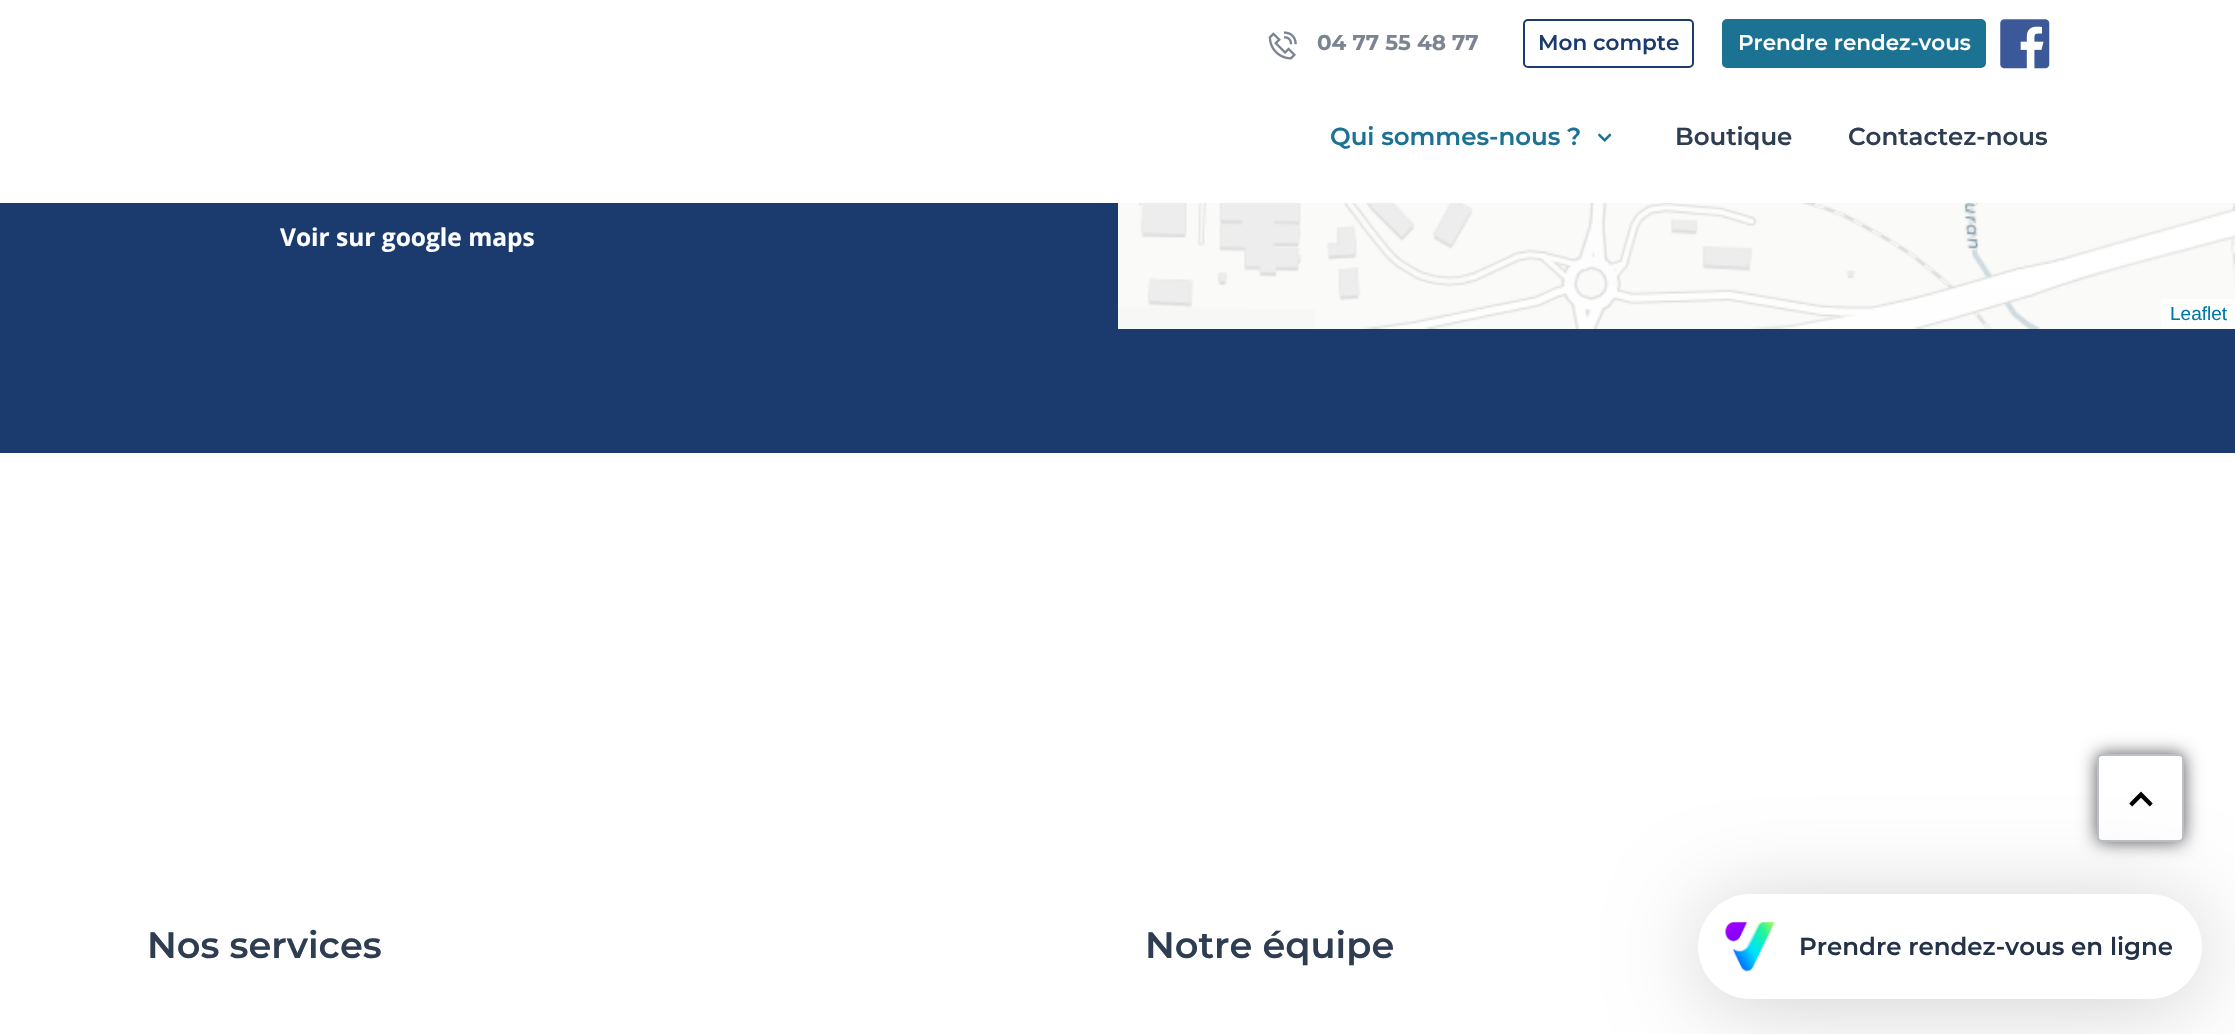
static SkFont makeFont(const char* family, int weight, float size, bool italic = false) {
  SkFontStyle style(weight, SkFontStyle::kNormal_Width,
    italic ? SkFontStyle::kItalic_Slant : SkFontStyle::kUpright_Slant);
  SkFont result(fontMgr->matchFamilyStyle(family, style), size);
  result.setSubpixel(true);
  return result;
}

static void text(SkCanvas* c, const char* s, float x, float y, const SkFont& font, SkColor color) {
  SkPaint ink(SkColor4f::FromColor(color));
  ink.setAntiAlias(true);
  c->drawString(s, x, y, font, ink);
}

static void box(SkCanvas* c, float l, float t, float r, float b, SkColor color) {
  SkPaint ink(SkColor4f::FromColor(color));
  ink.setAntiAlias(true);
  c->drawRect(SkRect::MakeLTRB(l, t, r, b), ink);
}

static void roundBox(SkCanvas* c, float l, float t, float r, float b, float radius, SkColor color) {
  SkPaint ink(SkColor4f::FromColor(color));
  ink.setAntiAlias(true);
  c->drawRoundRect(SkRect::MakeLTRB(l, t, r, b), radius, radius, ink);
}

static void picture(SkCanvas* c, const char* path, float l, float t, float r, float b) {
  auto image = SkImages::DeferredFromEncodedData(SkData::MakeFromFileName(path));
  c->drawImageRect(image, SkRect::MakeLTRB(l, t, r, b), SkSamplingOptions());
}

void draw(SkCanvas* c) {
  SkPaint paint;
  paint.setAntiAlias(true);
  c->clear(0xffffffff);
  picture(c, "img_01.png", 1268, 31, 1297, 60);
  SkFont face1 = makeFont("Montserrat", 700, 21.5f);
  text(c, "04 77 55 48 77", 1317, 50, face1, 0xff7c8492);
  paint.setStyle(SkPaint::kStroke_Style);
  paint.setStrokeWidth(2);
  paint.setColor(0xff1b3b6f);
  c->drawRoundRect(SkRect::MakeLTRB(1524, 20, 1693, 67), 4, 4, paint);
  SkFont face2 = makeFont("Montserrat", 600, 21.5f);
  text(c, "Mon compte", 1538, 50, face2, 0xff1b3b6f);
  paint.setStyle(SkPaint::kFill_Style);
  paint.setColor(0xff1c7293);
  c->drawRoundRect(SkRect::MakeLTRB(1723, 20, 1985, 67), 4, 4, paint);
  paint.setStyle(SkPaint::kStroke_Style);
  c->drawRoundRect(SkRect::MakeLTRB(1723, 20, 1985, 67), 4, 4, paint);
  text(c, "Prendre rendez-vous", 1738, 50, face2, 0xffffffff);
  picture(c, "img_02.png", 2000, 19, 2050, 69);
  SkFont face3 = makeFont("Montserrat", 600, 24.5f);
  text(c, "Qui sommes-nous ?", 1330, 145, face3, 0xff1c7293);
  picture(c, "img_03.png", 1597, 133, 1612, 142);
  text(c, "Boutique", 1675, 145, face3, 0xff2f3d52);
  text(c, "Contactez-nous", 1848, 145, face3, 0xff2f3d52);
  box(c, 0, 203, 2235, 453, 0xff1b3b6f);
  SkFont face4 = makeFont("Open Sans", 700, 24.5f);
  text(c, "Voir sur google maps", 280, 246, face4, 0xffffffff);
  picture(c, "img_04.png", 1118, 203, 1470, 287);
  picture(c, "img_05.png", 1470, 203, 1918, 287);
  picture(c, "img_06.png", 1918, 203, 2235, 287);
  picture(c, "img_07.png", 1118, 286, 1470, 329);
  picture(c, "img_08.png", 1470, 286, 1918, 329);
  picture(c, "img_09.png", 1918, 286, 2235, 329);
  box(c, 2161, 299, 2235, 329, 0xfffefefd);
  SkFont face5 = makeFont("Liberation Sans", 400, 19);
  text(c, "Leaflet", 2170, 320, face5, 0xff0078a8);
  paint.setStyle(SkPaint::kFill_Style);
  paint.setColor(0xff555555);
  paint.setMaskFilter(SkMaskFilter::MakeBlur(kNormal_SkBlurStyle, 9));
  c->drawRoundRect(SkRect::MakeLTRB(2097, 754, 2184, 842), 5, 5, paint);
  paint.setMaskFilter(nullptr);
  paint.setColor(0xffffffff);
  c->drawRoundRect(SkRect::MakeLTRB(2098, 755, 2183, 841), 4, 4, paint);
  paint.setStyle(SkPaint::kStroke_Style);
  paint.setColor(0xffbbc0c7);
  c->drawRoundRect(SkRect::MakeLTRB(2098, 755, 2183, 841), 4, 4, paint);
  picture(c, "img_10.png", 2129, 791, 2153, 807);
  SkFont face6 = makeFont("Montserrat", 600, 36.75f);
  text(c, "Nos services", 147, 958, face6, 0xff2f3d52);
  text(c, "Notre équipe", 1145, 958, face6, 0xff2f3d52);
  paint.setStyle(SkPaint::kFill_Style);
  paint.setColor(0x2e000000);
  paint.setMaskFilter(SkMaskFilter::MakeBlur(kNormal_SkBlurStyle, 44));
  c->drawRoundRect(SkRect::MakeLTRB(1698, 901, 2202, 1006), 52.5f, 52.5f, paint);
  paint.setMaskFilter(nullptr);
  roundBox(c, 1698, 894, 2202, 999, 52.5f, 0xffffffff);
  picture(c, "img_11.png", 1725, 922, 1775, 972);
  text(c, "Prendre rendez-vous en ligne", 1799, 955, face3, 0xff243249);
}
